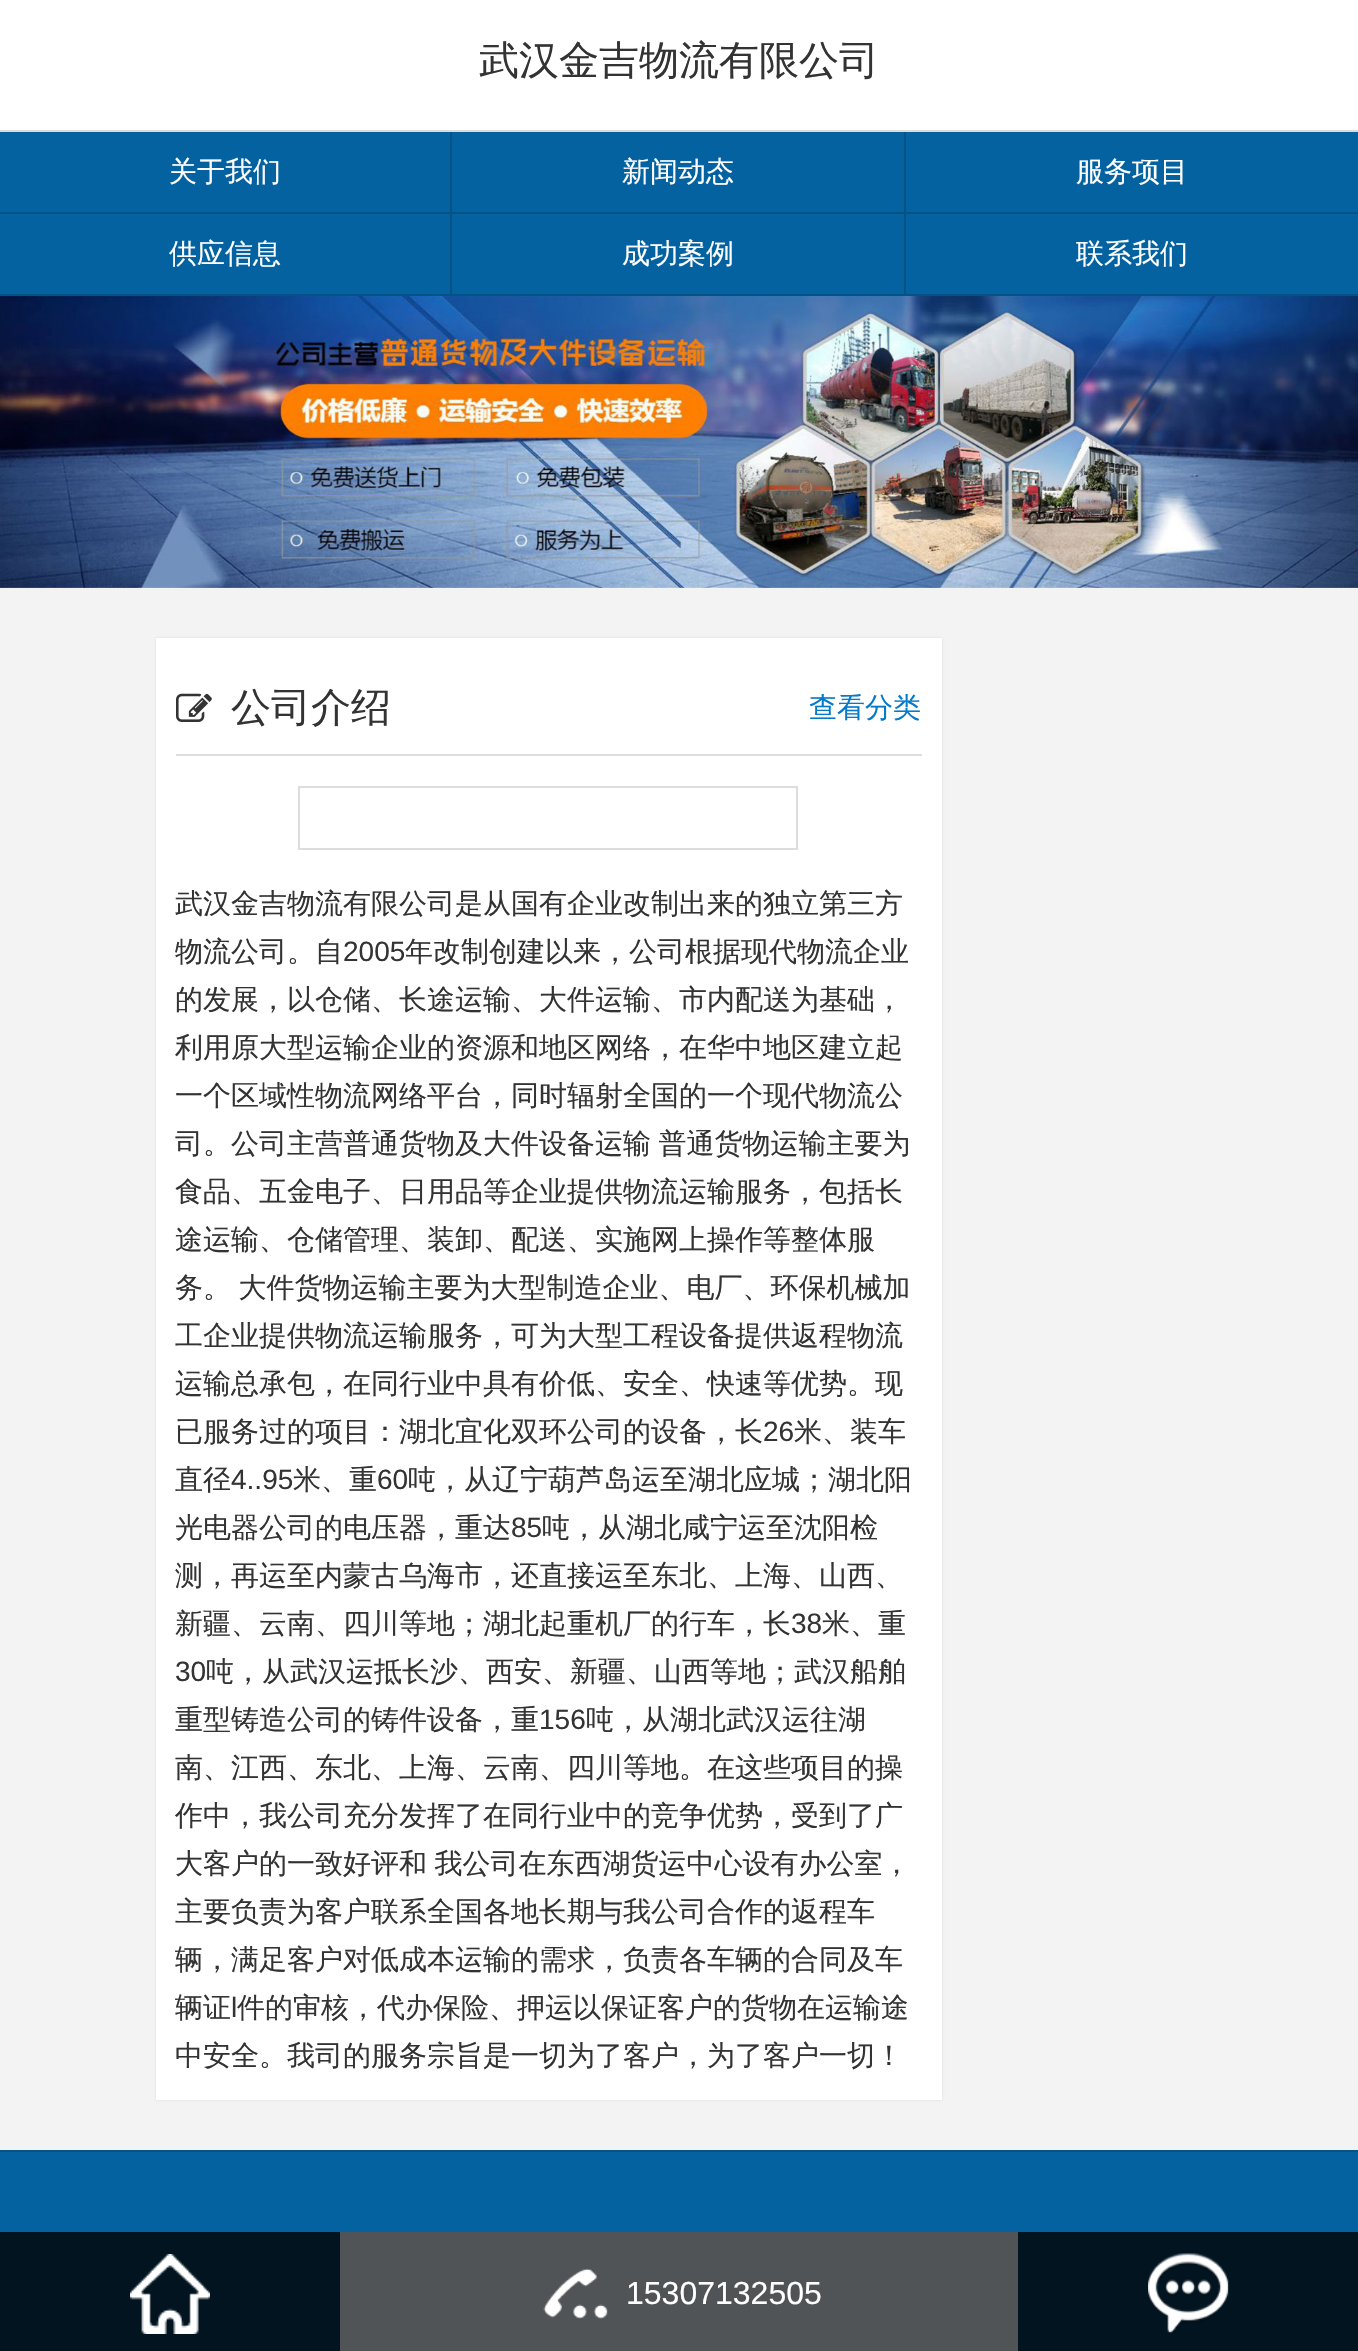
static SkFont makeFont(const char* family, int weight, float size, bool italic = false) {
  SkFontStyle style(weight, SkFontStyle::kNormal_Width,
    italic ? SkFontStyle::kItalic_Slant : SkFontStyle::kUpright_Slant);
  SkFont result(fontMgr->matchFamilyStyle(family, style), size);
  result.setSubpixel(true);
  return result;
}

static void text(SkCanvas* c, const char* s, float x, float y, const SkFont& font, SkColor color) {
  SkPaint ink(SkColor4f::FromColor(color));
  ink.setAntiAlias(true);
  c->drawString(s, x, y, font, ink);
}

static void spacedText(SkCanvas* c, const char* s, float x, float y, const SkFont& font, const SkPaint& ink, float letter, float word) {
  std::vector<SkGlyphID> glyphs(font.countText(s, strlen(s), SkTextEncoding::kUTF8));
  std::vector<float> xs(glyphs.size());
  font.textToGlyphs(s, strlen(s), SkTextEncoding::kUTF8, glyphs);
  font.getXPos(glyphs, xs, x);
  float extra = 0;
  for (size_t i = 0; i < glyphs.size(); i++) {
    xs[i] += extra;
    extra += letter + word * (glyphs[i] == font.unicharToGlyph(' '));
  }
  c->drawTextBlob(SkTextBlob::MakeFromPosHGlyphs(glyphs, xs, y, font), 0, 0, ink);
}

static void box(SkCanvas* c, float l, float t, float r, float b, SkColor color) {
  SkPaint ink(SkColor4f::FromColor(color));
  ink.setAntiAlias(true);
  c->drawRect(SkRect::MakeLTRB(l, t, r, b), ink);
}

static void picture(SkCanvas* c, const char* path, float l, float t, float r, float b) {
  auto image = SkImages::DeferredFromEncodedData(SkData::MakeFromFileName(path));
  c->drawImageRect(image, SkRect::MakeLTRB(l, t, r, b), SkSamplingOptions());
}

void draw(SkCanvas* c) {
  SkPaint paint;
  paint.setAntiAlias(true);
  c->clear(0xffffffff);
  SkFont face1 = makeFont("WenQuanYi Zen Hei", 500, 40);
  text(c, "武汉金吉物流有限公司", 479, 74, face1, 0xff333333);
  box(c, 0, 132, 1358, 294, 0xff0462a0);
  box(c, 0, 130, 1358, 132, 0xffdddddd);
  box(c, 450, 132, 452, 296, 0xff035387);
  box(c, 0, 212, 452, 214, 0xff035387);
  SkFont face2 = makeFont("WenQuanYi Zen Hei", 500, 28);
  text(c, "关于我们", 169, 181, face2, 0xffffffff);
  box(c, 904, 132, 906, 296, 0xff035387);
  box(c, 452, 212, 1358, 214, 0xff035387);
  text(c, "新闻动态", 622, 181, face2, 0xffffffff);
  text(c, "服务项目", 1076, 181, face2, 0xffffffff);
  box(c, 0, 294, 1358, 296, 0xff035387);
  text(c, "供应信息", 169, 263, face2, 0xffffffff);
  text(c, "成功案例", 622, 263, face2, 0xffffffff);
  text(c, "联系我们", 1076, 263, face2, 0xffffffff);
  picture(c, "img_01.png", 0, 296, 1358, 588);
  box(c, 0, 588, 1358, 2150, 0xfff3f3f3);
  paint.setColor(0x1a000000);
  paint.setMaskFilter(SkMaskFilter::MakeBlur(kNormal_SkBlurStyle, 1));
  c->drawRect(SkRect::MakeLTRB(156, 638, 942, 2100), paint);
  paint.setMaskFilter(nullptr);
  box(c, 156, 638, 942, 2100, 0xffffffff);
  box(c, 176, 754, 922, 756, 0xffdddddd);
  picture(c, "img_02.png", 176, 693, 212, 722);
  text(c, "公司介绍", 231, 721, face1, 0xff333333);
  text(c, "查看分类", 809, 717, face2, 0xff057ac8);
  paint.setStyle(SkPaint::kStroke_Style);
  paint.setStrokeWidth(2);
  paint.setColor(0xffdddddd);
  c->drawRect(SkRect::MakeLTRB(299, 787, 797, 849), paint);
  text(c, "武汉金吉物流有限公司是从国有企业改制出来的独立第三方", 175, 913, face2, 0xff333333);
  text(c, "物流公司。自", 175, 961, face2, 0xff333333);
  SkFont face3 = makeFont("Liberation Sans", 400, 28);
  text(c, "2005", 343, 961, face3, 0xff333333);
  text(c, "年改制创建以来，公司根据现代物流企业", 405, 961, face2, 0xff333333);
  text(c, "的发展，以仓储、长途运输、大件运输、市内配送为基础，", 175, 1009, face2, 0xff333333);
  text(c, "利用原大型运输企业的资源和地区网络，在华中地区建立起", 175, 1057, face2, 0xff333333);
  text(c, "一个区域性物流网络平台，同时辐射全国的一个现代物流公", 175, 1105, face2, 0xff333333);
  paint.setStyle(SkPaint::kFill_Style);
  paint.setColor(0xff333333);
  spacedText(c, "司。公司主营普通货物及大件设备运输 普通货物运输主要为", 175, 1153, face2, paint, 0, -1);
  text(c, "食品、五金电子、日用品等企业提供物流运输服务，包括长", 175, 1201, face2, 0xff333333);
  text(c, "途运输、仓储管理、装卸、配送、实施网上操作等整体服", 175, 1249, face2, 0xff333333);
  spacedText(c, "务。 大件货物运输主要为大型制造企业、电厂、环保机械加", 175, 1297, face2, paint, 0, -1);
  text(c, "工企业提供物流运输服务，可为大型工程设备提供返程物流", 175, 1345, face2, 0xff333333);
  text(c, "运输总承包，在同行业中具有价低、安全、快速等优势。现", 175, 1393, face2, 0xff333333);
  text(c, "已服务过的项目：湖北宜化双环公司的设备，长", 175, 1441, face2, 0xff333333);
  text(c, "26", 763, 1441, face3, 0xff333333);
  text(c, "米、装车", 794, 1441, face2, 0xff333333);
  text(c, "直径", 175, 1489, face2, 0xff333333);
  text(c, "4..95", 231, 1489, face3, 0xff333333);
  text(c, "米、重", 293, 1489, face2, 0xff333333);
  text(c, "60", 377, 1489, face3, 0xff333333);
  text(c, "吨，从辽宁葫芦岛运至湖北应城；湖北阳", 408, 1489, face2, 0xff333333);
  text(c, "光电器公司的电压器，重达", 175, 1537, face2, 0xff333333);
  text(c, "85", 511, 1537, face3, 0xff333333);
  text(c, "吨，从湖北咸宁运至沈阳检", 542, 1537, face2, 0xff333333);
  text(c, "测，再运至内蒙古乌海市，还直接运至东北、上海、山西、", 175, 1585, face2, 0xff333333);
  text(c, "新疆、云南、四川等地；湖北起重机厂的行车，长", 175, 1633, face2, 0xff333333);
  text(c, "38", 791, 1633, face3, 0xff333333);
  text(c, "米、重", 822, 1633, face2, 0xff333333);
  text(c, "30", 175, 1681, face3, 0xff333333);
  text(c, "吨，从武汉运抵长沙、西安、新疆、山西等地；武汉船舶", 206, 1681, face2, 0xff333333);
  text(c, "重型铸造公司的铸件设备，重", 175, 1729, face2, 0xff333333);
  text(c, "156", 539, 1729, face3, 0xff333333);
  text(c, "吨，从湖北武汉运往湖", 586, 1729, face2, 0xff333333);
  text(c, "南、江西、东北、上海、云南、四川等地。在这些项目的操", 175, 1777, face2, 0xff333333);
  text(c, "作中，我公司充分发挥了在同行业中的竞争优势，受到了广", 175, 1825, face2, 0xff333333);
  spacedText(c, "大客户的一致好评和 我公司在东西湖货运中心设有办公室，", 175, 1873, face2, paint, 0, -1);
  text(c, "主要负责为客户联系全国各地长期与我公司合作的返程车", 175, 1921, face2, 0xff333333);
  text(c, "辆，满足客户对低成本运输的需求，负责各车辆的合同及车", 175, 1969, face2, 0xff333333);
  text(c, "辆证", 175, 2017, face2, 0xff333333);
  text(c, "l", 231, 2017, face3, 0xff333333);
  text(c, "件的审核，代办保险、押运以保证客户的货物在运输途", 237, 2017, face2, 0xff333333);
  text(c, "中安全。我司的服务宗旨是一切为了客户，为了客户一切！", 175, 2065, face2, 0xff333333);
  box(c, 0, 2152, 1358, 2351, 0xff0462a0);
  box(c, 0, 2150, 1358, 2152, 0xff035387);
  box(c, 0, 2232, 1358, 2351, 0xcc000000);
  picture(c, "img_03.png", 130, 2254, 210, 2334);
  box(c, 340, 2232, 1018, 2351, 0xcc646464);
  picture(c, "img_04.png", 543, 2268, 608, 2319);
  SkFont face4 = makeFont("Liberation Sans", 400, 32);
  text(c, "15307132505", 626, 2304, face4, 0xffffffff);
  picture(c, "img_05.png", 1148, 2253, 1229, 2334);
}
